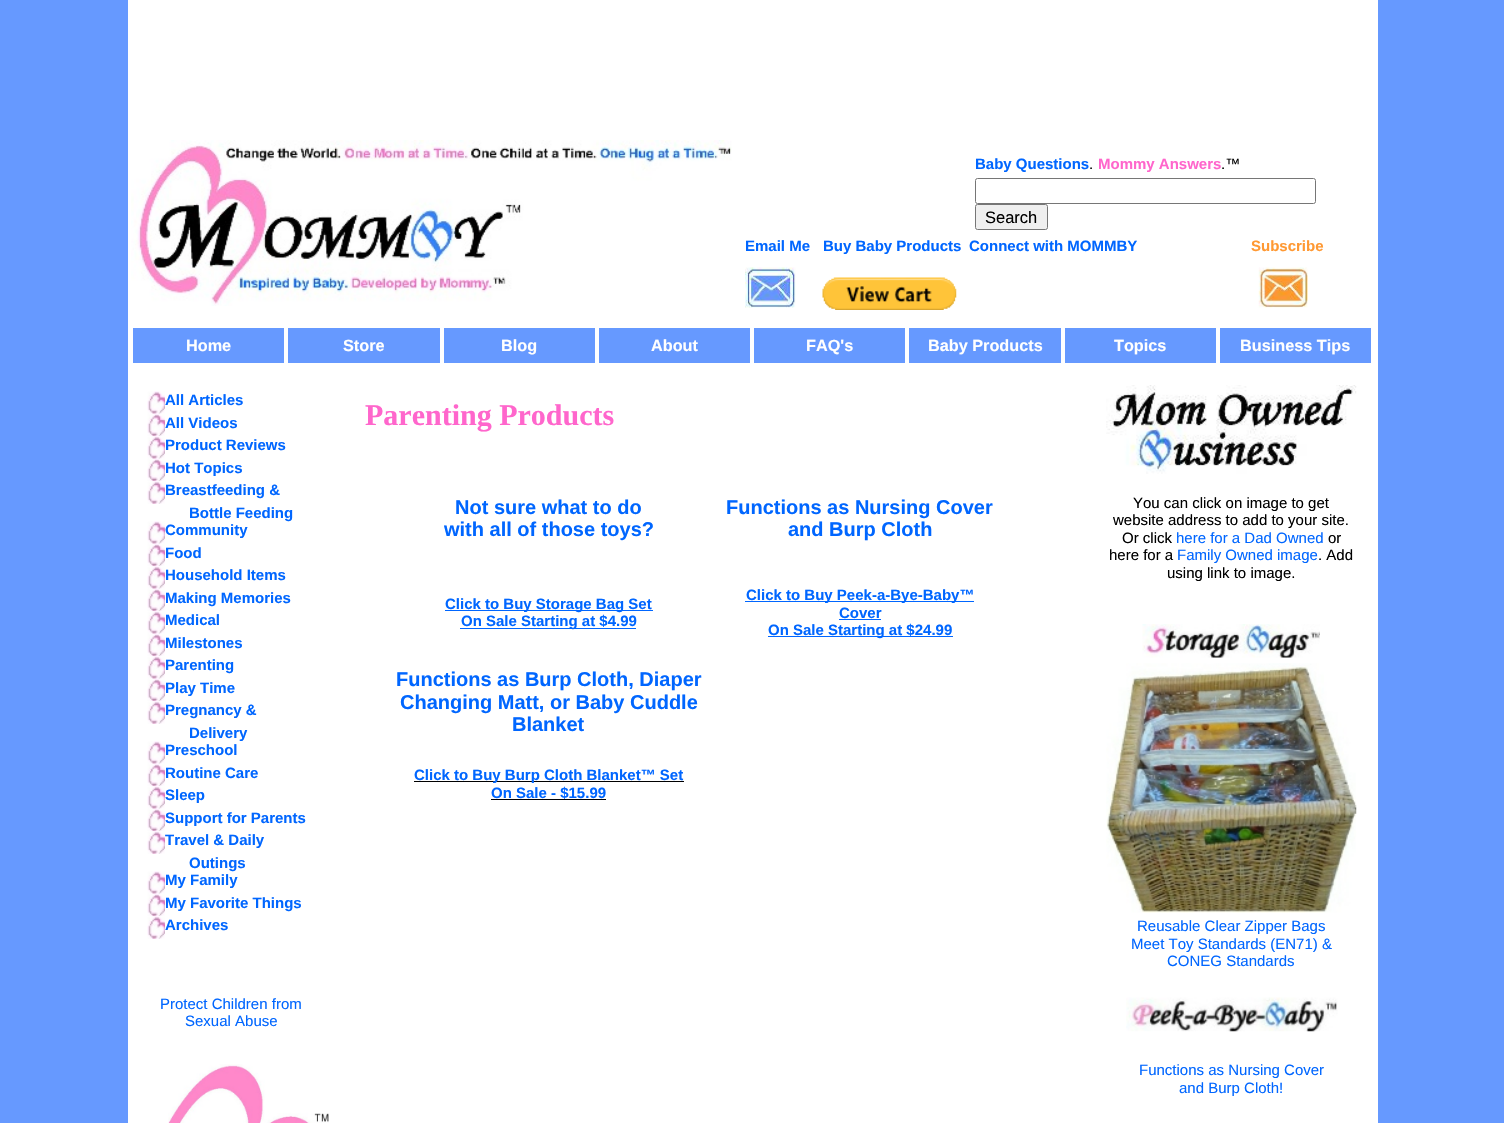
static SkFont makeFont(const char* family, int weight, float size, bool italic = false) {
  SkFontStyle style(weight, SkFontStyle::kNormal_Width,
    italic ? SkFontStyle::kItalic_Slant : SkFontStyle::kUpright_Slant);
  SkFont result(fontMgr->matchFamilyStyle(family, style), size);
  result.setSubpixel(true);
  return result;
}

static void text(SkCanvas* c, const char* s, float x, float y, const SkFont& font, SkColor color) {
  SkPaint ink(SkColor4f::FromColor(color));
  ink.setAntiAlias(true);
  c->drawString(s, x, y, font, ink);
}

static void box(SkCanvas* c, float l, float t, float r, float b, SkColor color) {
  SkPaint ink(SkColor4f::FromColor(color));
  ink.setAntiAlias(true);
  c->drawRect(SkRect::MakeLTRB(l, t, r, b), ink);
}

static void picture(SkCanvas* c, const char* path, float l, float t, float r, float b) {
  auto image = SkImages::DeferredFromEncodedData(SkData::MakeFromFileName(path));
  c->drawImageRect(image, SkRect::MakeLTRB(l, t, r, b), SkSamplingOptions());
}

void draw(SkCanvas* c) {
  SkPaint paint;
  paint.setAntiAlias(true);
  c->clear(0xff6699ff);
  box(c, 128, 0, 1378, 1123, 0xffffffff);
  picture(c, "img_01.png", 131, 140, 732, 306);
  SkFont face1 = makeFont("Liberation Sans", 700, 15);
  text(c, "Baby Questions", 975, 169, face1, 0xff0066ff);
  SkFont face2 = makeFont("Liberation Sans", 400, 15);
  text(c, ".", 1089, 169, face2, 0xff000000);
  text(c, "Mommy Answers", 1098, 169, face1, 0xffff66cc);
  text(c, ".™", 1221, 169, face2, 0xff000000);
  paint.setStyle(SkPaint::kStroke_Style);
  paint.setStrokeWidth(1);
  paint.setColor(0xff767676);
  c->drawRoundRect(SkRect::MakeLTRB(975.5f, 178.5f, 1315.5f, 203.5f), 2, 2, paint);
  paint.setStyle(SkPaint::kFill_Style);
  paint.setColor(0xffefefef);
  c->drawRoundRect(SkRect::MakeLTRB(975.5f, 204.5f, 1047.5f, 229.5f), 2, 2, paint);
  paint.setStyle(SkPaint::kStroke_Style);
  paint.setColor(0xff767676);
  c->drawRoundRect(SkRect::MakeLTRB(975.5f, 204.5f, 1047.5f, 229.5f), 2, 2, paint);
  SkFont face3 = makeFont("Liberation Sans", 400, 16.5f);
  text(c, "Search", 985, 223, face3, 0xff000000);
  text(c, "Email Me", 745, 251, face1, 0xff0066ff);
  text(c, "Buy Baby Products", 823, 251, face1, 0xff0066ff);
  text(c, "Connect with MOMMBY", 969, 251, face1, 0xff0066ff);
  text(c, "Subscribe", 1251, 251, face1, 0xffff9933);
  picture(c, "img_02.png", 745, 267, 796, 308);
  picture(c, "img_03.png", 822, 277, 957, 310);
  picture(c, "img_04.png", 1258, 267, 1308, 308);
  box(c, 133, 328, 284, 363, 0xff6699ff);
  SkFont face4 = makeFont("Liberation Sans", 700, 16.25f);
  text(c, "Home", 186, 351, face4, 0xffffffff);
  box(c, 288, 328, 440, 363, 0xff6699ff);
  text(c, "Store", 343, 351, face4, 0xffffffff);
  box(c, 444, 328, 595, 363, 0xff6699ff);
  text(c, "Blog", 501, 351, face4, 0xffffffff);
  box(c, 599, 328, 750, 363, 0xff6699ff);
  text(c, "About", 651, 351, face4, 0xffffffff);
  box(c, 754, 328, 905, 363, 0xff6699ff);
  text(c, "FAQ's", 806, 351, face4, 0xffffffff);
  box(c, 909, 328, 1061, 363, 0xff6699ff);
  text(c, "Baby Products", 928, 351, face4, 0xffffffff);
  box(c, 1065, 328, 1216, 363, 0xff6699ff);
  text(c, "Topics", 1114, 351, face4, 0xffffffff);
  box(c, 1220, 328, 1371, 363, 0xff6699ff);
  text(c, "Business Tips", 1240, 351, face4, 0xffffffff);
  picture(c, "img_05.png", 147, 391, 165, 414);
  text(c, "All Articles", 165, 405, face1, 0xff0066ff);
  picture(c, "img_06.png", 147, 413, 165, 437);
  text(c, "All Videos", 165, 428, face1, 0xff0066ff);
  picture(c, "img_07.png", 147, 436, 165, 459);
  text(c, "Product Reviews", 165, 450, face1, 0xff0066ff);
  picture(c, "img_06.png", 147, 458, 165, 482);
  text(c, "Hot Topics", 165, 473, face1, 0xff0066ff);
  picture(c, "img_07.png", 147, 481, 165, 504);
  text(c, "Breastfeeding &", 165, 495, face1, 0xff0066ff);
  text(c, "Bottle Feeding", 189, 518, face1, 0xff0066ff);
  picture(c, "img_05.png", 147, 521, 165, 544);
  text(c, "Community", 165, 535, face1, 0xff0066ff);
  picture(c, "img_06.png", 147, 543, 165, 567);
  text(c, "Food", 165, 558, face1, 0xff0066ff);
  picture(c, "img_07.png", 147, 566, 165, 589);
  text(c, "Household Items", 165, 580, face1, 0xff0066ff);
  picture(c, "img_06.png", 147, 588, 165, 612);
  text(c, "Making Memories", 165, 603, face1, 0xff0066ff);
  picture(c, "img_07.png", 147, 611, 165, 634);
  text(c, "Medical", 165, 625, face1, 0xff0066ff);
  picture(c, "img_06.png", 147, 633, 165, 657);
  text(c, "Milestones", 165, 648, face1, 0xff0066ff);
  picture(c, "img_07.png", 147, 656, 165, 679);
  text(c, "Parenting", 165, 670, face1, 0xff0066ff);
  picture(c, "img_06.png", 147, 678, 165, 702);
  text(c, "Play Time", 165, 693, face1, 0xff0066ff);
  picture(c, "img_07.png", 147, 701, 165, 724);
  text(c, "Pregnancy &", 165, 715, face1, 0xff0066ff);
  text(c, "Delivery", 189, 738, face1, 0xff0066ff);
  picture(c, "img_05.png", 147, 741, 165, 764);
  text(c, "Preschool", 165, 755, face1, 0xff0066ff);
  picture(c, "img_06.png", 147, 763, 165, 787);
  text(c, "Routine Care", 165, 778, face1, 0xff0066ff);
  picture(c, "img_07.png", 147, 786, 165, 809);
  text(c, "Sleep", 165, 800, face1, 0xff0066ff);
  picture(c, "img_06.png", 147, 808, 165, 832);
  text(c, "Support for Parents", 165, 823, face1, 0xff0066ff);
  picture(c, "img_07.png", 147, 831, 165, 854);
  text(c, "Travel & Daily", 165, 845, face1, 0xff0066ff);
  text(c, "Outings", 189, 868, face1, 0xff0066ff);
  picture(c, "img_05.png", 147, 871, 165, 894);
  text(c, "My Family", 165, 885, face1, 0xff0066ff);
  picture(c, "img_06.png", 147, 893, 165, 917);
  text(c, "My Favorite Things", 165, 908, face1, 0xff0066ff);
  picture(c, "img_07.png", 147, 916, 165, 939);
  text(c, "Archives", 165, 930, face1, 0xff0066ff);
  text(c, "Protect Children from", 160, 1009, face2, 0xff0066ff);
  text(c, "Sexual Abuse", 185, 1026, face2, 0xff0066ff);
  picture(c, "img_08.png", 168, 1064, 329, 1123);
  SkFont face5 = makeFont("Liberation Serif", 700, 30);
  text(c, "Parenting Products", 365, 425, face5, 0xffff66cc);
  SkFont face6 = makeFont("Liberation Sans", 700, 20);
  text(c, "Not sure what to do", 455, 514, face6, 0xff0066ff);
  text(c, "with all of those toys?", 444, 536, face6, 0xff0066ff);
  text(c, "Functions as Nursing Cover", 726, 514, face6, 0xff0066ff);
  text(c, "and Burp Cloth", 788, 536, face6, 0xff0066ff);
  box(c, 445, 610, 653, 611, 0xff0066ff);
  text(c, "Click to Buy Storage Bag Set", 445, 609, face1, 0xff0066ff);
  box(c, 460, 628, 636, 629, 0xff0066ff);
  text(c, "On Sale Starting at $4.99", 461, 626, face1, 0xff0066ff);
  box(c, 745, 601, 974, 602, 0xff0066ff);
  text(c, "Click to Buy Peek-a-Bye-Baby™", 746, 600, face1, 0xff0066ff);
  text(c, "Cover", 839, 618, face1, 0xff0066ff);
  box(c, 839, 619, 881, 620, 0xff0066ff);
  box(c, 768, 636, 953, 637, 0xff0066ff);
  text(c, "On Sale Starting at $24.99", 768, 635, face1, 0xff0066ff);
  text(c, "Functions as Burp Cloth, Diaper", 396, 686, face6, 0xff0066ff);
  text(c, "Changing Matt, or Baby Cuddle", 400, 709, face6, 0xff0066ff);
  text(c, "Blanket", 512, 731, face6, 0xff0066ff);
  box(c, 414, 781, 684, 782, 0xff000000);
  text(c, "Click to Buy Burp Cloth Blanket™ Set", 414, 780, face1, 0xff0066ff);
  box(c, 491, 799, 606, 800, 0xff000000);
  text(c, "On Sale - $15.99", 491, 798, face1, 0xff0066ff);
  picture(c, "img_09.png", 1106, 385, 1357, 474);
  text(c, "You can click on image to get", 1133, 508, face2, 0xff000000);
  text(c, "website address to add to your site.", 1113, 525, face2, 0xff000000);
  text(c, "Or click", 1122, 543, face2, 0xff000000);
  text(c, "here for a Dad Owned", 1176, 543, face2, 0xff0066ff);
  text(c, "or", 1328, 543, face2, 0xff000000);
  text(c, "here for a", 1109, 560, face2, 0xff000000);
  text(c, "Family Owned image", 1177, 560, face2, 0xff0066ff);
  text(c, ". Add", 1318, 560, face2, 0xff000000);
  text(c, "using link to image.", 1167, 578, face2, 0xff000000);
  picture(c, "img_10.png", 1142, 624, 1320, 658);
  picture(c, "img_11.png", 1106, 663, 1357, 913);
  text(c, "Reusable Clear Zipper Bags", 1137, 931, face2, 0xff0066ff);
  text(c, "Meet Toy Standards (EN71) &", 1131, 949, face2, 0xff0066ff);
  text(c, "CONEG Standards", 1167, 966, face2, 0xff0066ff);
  picture(c, "img_12.png", 1126, 997, 1338, 1032);
  text(c, "Functions as Nursing Cover", 1139, 1075, face2, 0xff0066ff);
  text(c, "and Burp Cloth!", 1179, 1093, face2, 0xff0066ff);
}
